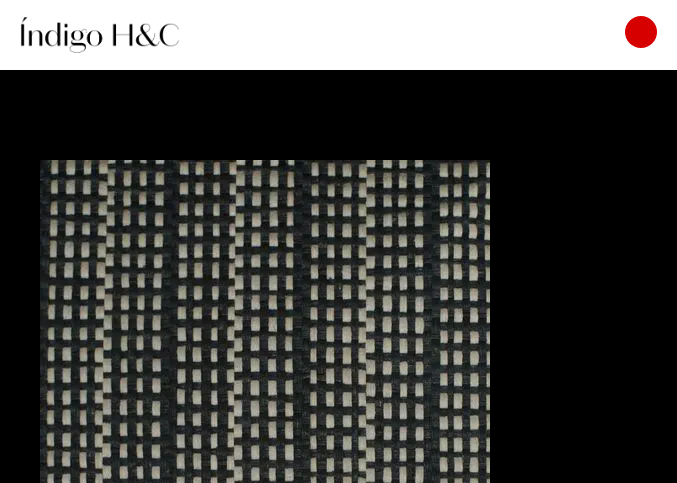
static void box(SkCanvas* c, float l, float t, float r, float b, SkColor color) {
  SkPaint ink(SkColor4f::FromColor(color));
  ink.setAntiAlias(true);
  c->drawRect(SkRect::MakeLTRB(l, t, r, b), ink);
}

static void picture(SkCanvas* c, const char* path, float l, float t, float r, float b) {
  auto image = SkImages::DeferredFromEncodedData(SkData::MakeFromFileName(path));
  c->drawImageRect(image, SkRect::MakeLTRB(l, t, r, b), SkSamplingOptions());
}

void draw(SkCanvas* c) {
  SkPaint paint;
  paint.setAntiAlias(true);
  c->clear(0xff000000);
  box(c, 0, 0, 677, 70, 0xffffffff);
  picture(c, "img_01.png", 20, 17, 180, 53);
  paint.setColor(0xffd60000);
  c->drawCircle(641, 32, 16, paint);
  picture(c, "img_02.png", 40, 160, 490, 483);
}
